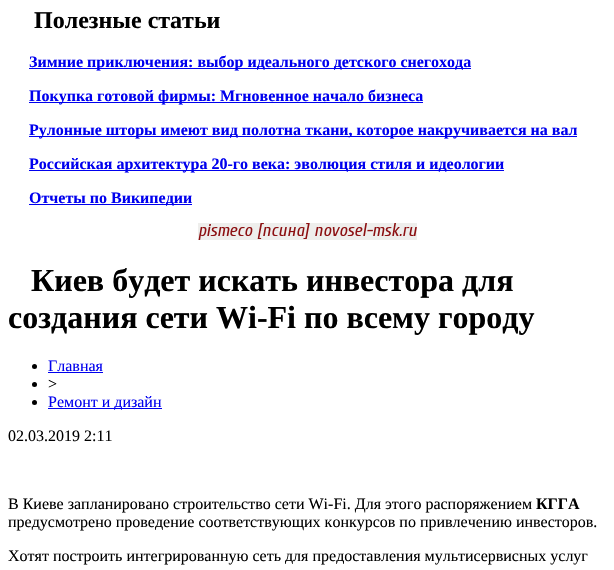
static SkFont makeFont(const char* family, int weight, float size, bool italic = false) {
  SkFontStyle style(weight, SkFontStyle::kNormal_Width,
    italic ? SkFontStyle::kItalic_Slant : SkFontStyle::kUpright_Slant);
  SkFont result(fontMgr->matchFamilyStyle(family, style), size);
  result.setSubpixel(true);
  return result;
}

static void text(SkCanvas* c, const char* s, float x, float y, const SkFont& font, SkColor color) {
  SkPaint ink(SkColor4f::FromColor(color));
  ink.setAntiAlias(true);
  c->drawString(s, x, y, font, ink);
}

static void box(SkCanvas* c, float l, float t, float r, float b, SkColor color) {
  SkPaint ink(SkColor4f::FromColor(color));
  ink.setAntiAlias(true);
  c->drawRect(SkRect::MakeLTRB(l, t, r, b), ink);
}

static void picture(SkCanvas* c, const char* path, float l, float t, float r, float b) {
  auto image = SkImages::DeferredFromEncodedData(SkData::MakeFromFileName(path));
  c->drawImageRect(image, SkRect::MakeLTRB(l, t, r, b), SkSamplingOptions());
}

void draw(SkCanvas* c) {
  SkPaint paint;
  paint.setAntiAlias(true);
  c->clear(0xffffffff);
  SkFont face1 = makeFont("Liberation Serif", 700, 24);
  text(c, "Полезные статьи", 34, 28, face1, 0xff000000);
  box(c, 29, 68, 471, 69, 0xff0000ee);
  SkFont face2 = makeFont("Liberation Serif", 700, 16);
  text(c, "Зимние приключения: выбор идеального детского снегохода", 29, 67, face2, 0xff0000ee);
  box(c, 29, 102, 423, 103, 0xff0000ee);
  text(c, "Покупка готовой фирмы: Мгновенное начало бизнеса", 29, 101, face2, 0xff0000ee);
  box(c, 29, 136, 577, 137, 0xff0000ee);
  text(c, "Рулонные шторы имеют вид полотна ткани, которое накручивается на вал", 29, 135, face2, 0xff0000ee);
  box(c, 29, 170, 504, 171, 0xff0000ee);
  text(c, "Российская архитектура 20-го века: эволюция стиля и идеологии", 29, 169, face2, 0xff0000ee);
  box(c, 29, 204, 192, 205, 0xff0000ee);
  text(c, "Отчеты по Википедии", 29, 203, face2, 0xff0000ee);
  picture(c, "img_01.png", 198, 223, 417, 240);
  SkFont face3 = makeFont("Liberation Serif", 700, 32);
  text(c, "Киев будет искать инвестора для", 31, 291, face3, 0xff000000);
  text(c, "создания сети Wi-Fi по всему городу", 8, 328, face3, 0xff000000);
  paint.setColor(0xff000000);
  c->drawCircle(34.5f, 366.5f, 2.5f, paint);
  SkFont face4 = makeFont("Liberation Serif", 400, 16);
  text(c, "Главная", 48, 371, face4, 0xff0000ee);
  box(c, 48, 372, 103, 373, 0xff0000ee);
  c->drawCircle(34.5f, 384.5f, 2.5f, paint);
  text(c, ">", 48, 389, face4, 0xff000000);
  c->drawCircle(34.5f, 402.5f, 2.5f, paint);
  box(c, 48, 408, 162, 409, 0xff0000ee);
  text(c, "Ремонт и дизайн", 48, 407, face4, 0xff0000ee);
  text(c, "02.03.2019 2:11", 8, 441, face4, 0xff000000);
  text(c, "В Киеве запланировано строительство сети Wi-Fi. Для этого распоряжением", 8, 509, face4, 0xff000000);
  text(c, "КГГА", 536, 509, face2, 0xff000000);
  text(c, "предусмотрено проведение соответствующих конкурсов по привлечению инвесторов.", 8, 527, face4, 0xff000000);
  text(c, "Хотят построить интегрированную сеть для предоставления мультисервисных услуг", 8, 561, face4, 0xff000000);
}
